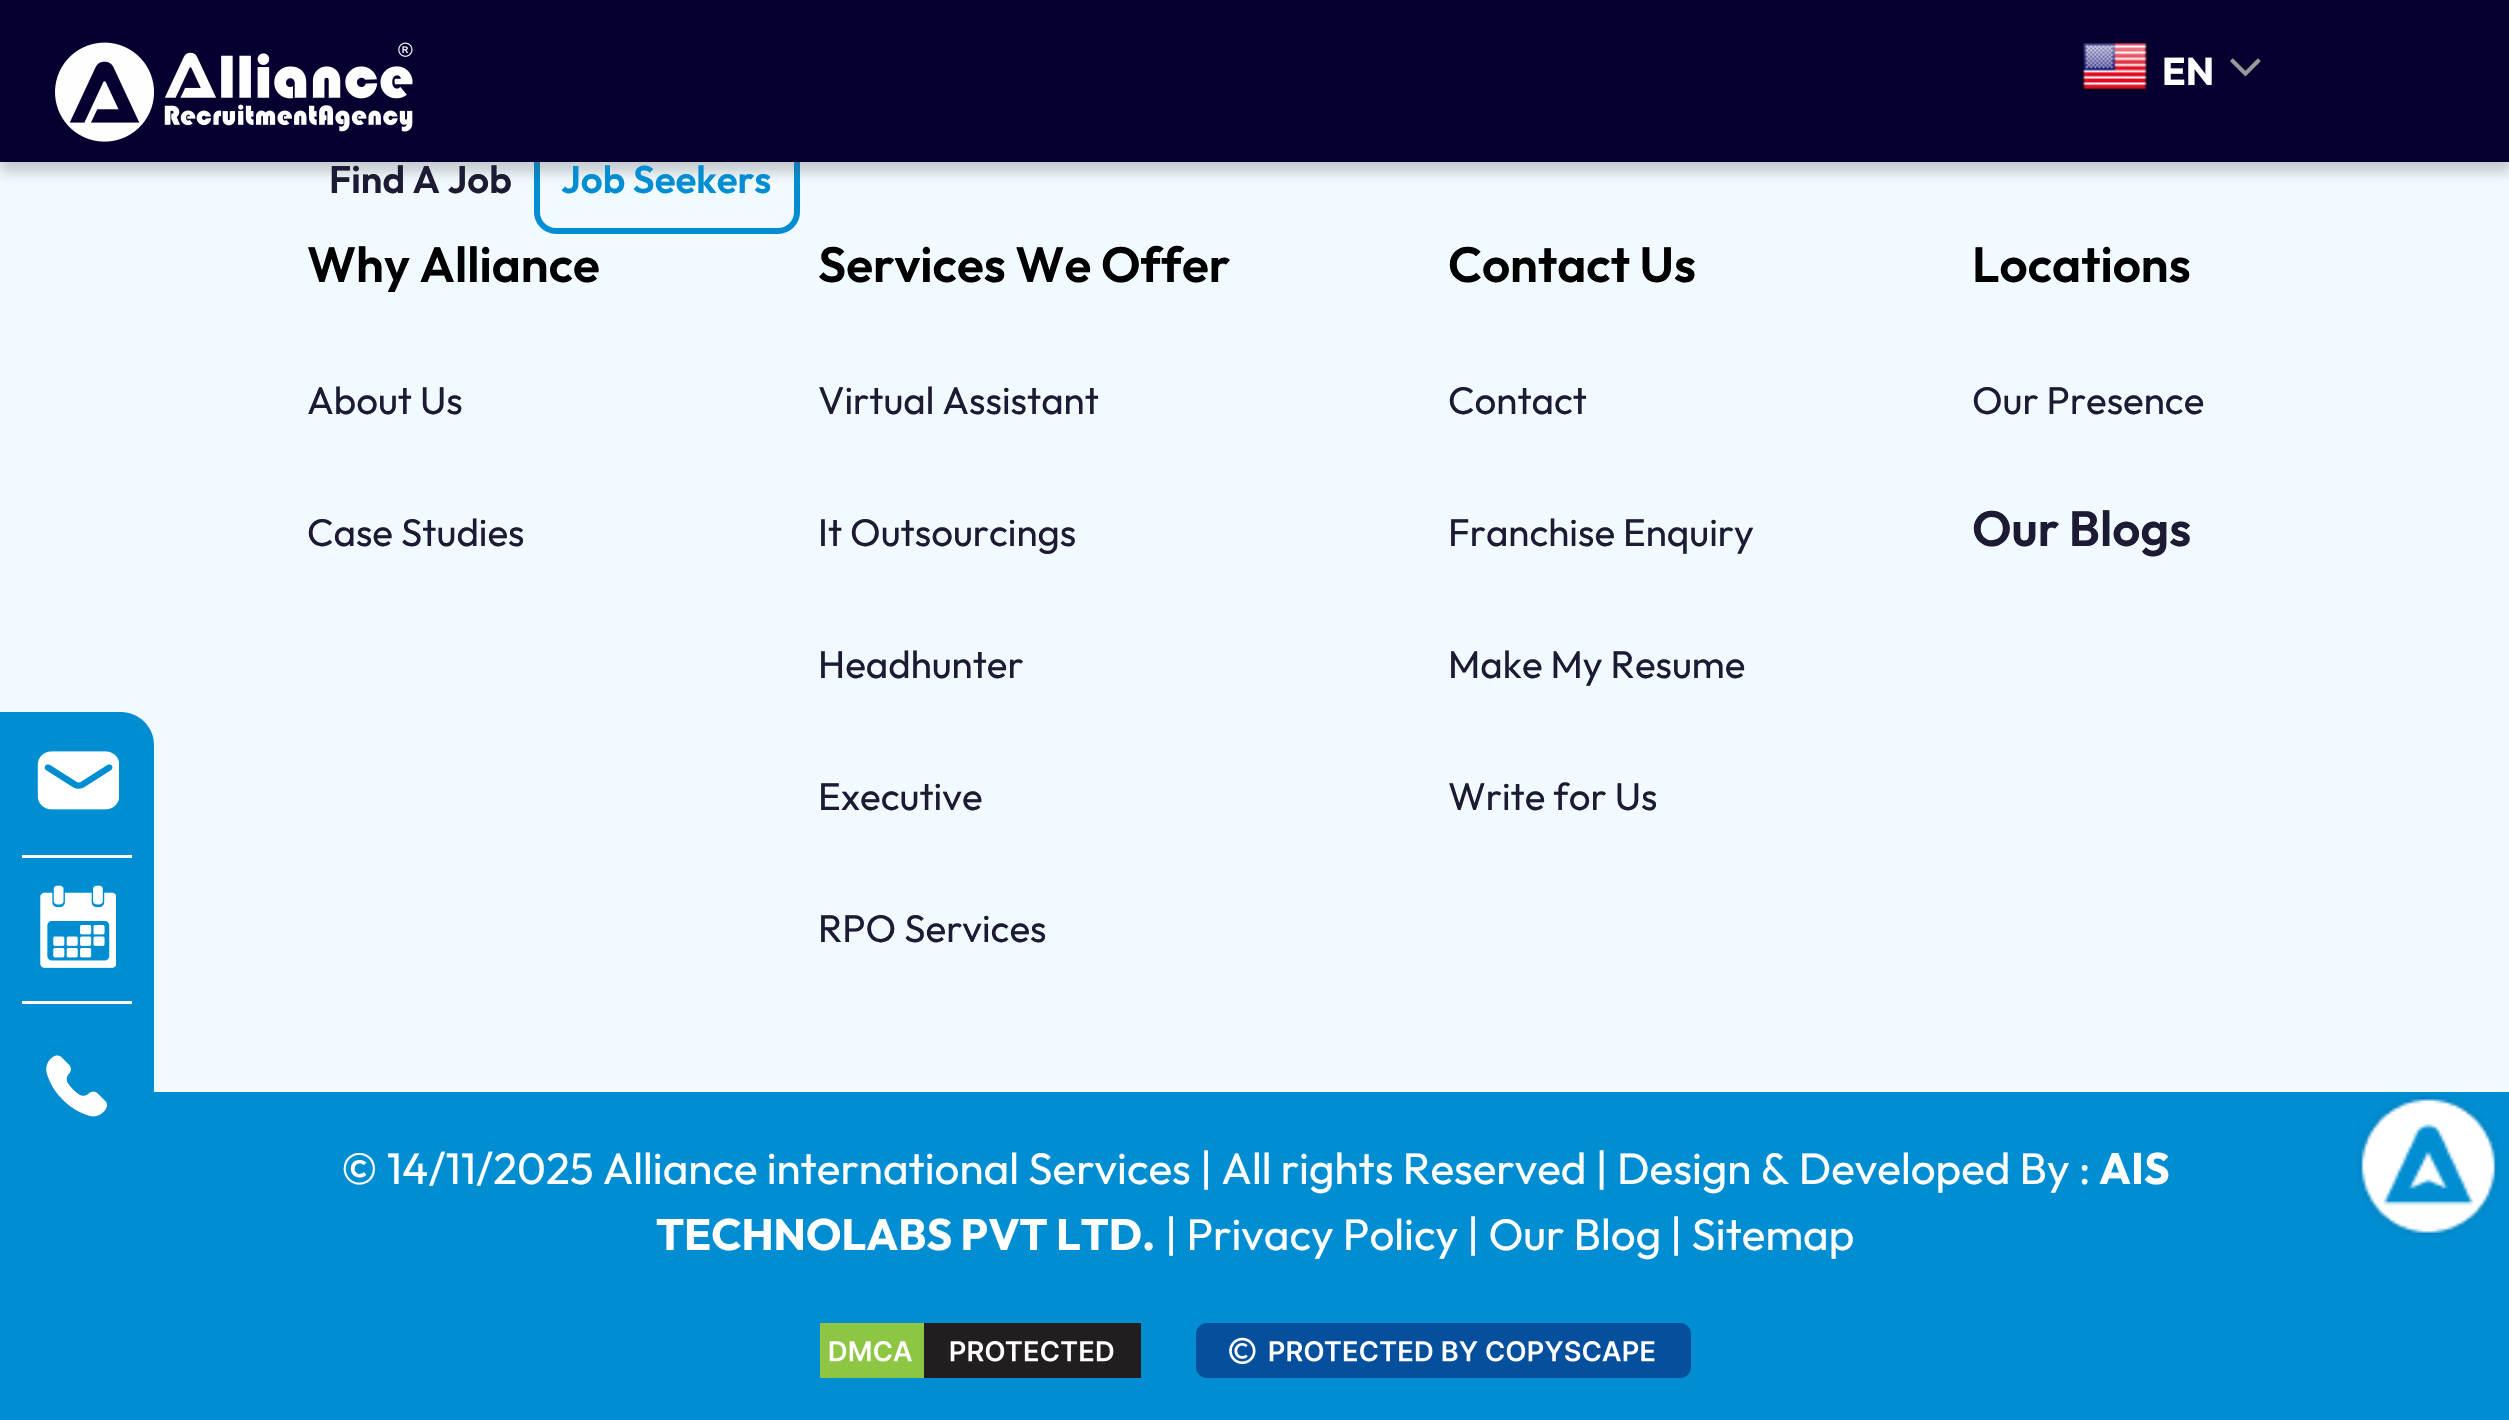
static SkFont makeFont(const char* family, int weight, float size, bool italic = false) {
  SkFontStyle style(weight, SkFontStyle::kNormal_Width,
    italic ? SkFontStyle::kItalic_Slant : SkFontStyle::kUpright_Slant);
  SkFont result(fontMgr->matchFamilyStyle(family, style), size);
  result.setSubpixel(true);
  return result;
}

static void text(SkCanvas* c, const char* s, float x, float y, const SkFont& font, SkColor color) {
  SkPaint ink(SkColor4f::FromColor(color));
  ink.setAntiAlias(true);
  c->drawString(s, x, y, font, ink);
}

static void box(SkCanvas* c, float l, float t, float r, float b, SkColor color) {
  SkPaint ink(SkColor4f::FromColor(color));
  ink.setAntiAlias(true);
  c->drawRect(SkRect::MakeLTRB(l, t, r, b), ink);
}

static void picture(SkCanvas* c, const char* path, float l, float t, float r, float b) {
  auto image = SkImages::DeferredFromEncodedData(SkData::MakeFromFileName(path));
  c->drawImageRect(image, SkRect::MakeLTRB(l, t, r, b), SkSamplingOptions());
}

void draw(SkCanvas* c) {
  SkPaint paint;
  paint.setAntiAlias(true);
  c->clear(0xfff1faff);
  paint.setStyle(SkPaint::kStroke_Style);
  paint.setStrokeWidth(6);
  paint.setColor(0xff008dd2);
  c->drawRoundRect(SkRect::MakeLTRB(537, 132, 797, 231), 19, 19, paint);
  paint.setStyle(SkPaint::kFill_Style);
  paint.setColor(0x404c4c4c);
  paint.setMaskFilter(SkMaskFilter::MakeBlur(kNormal_SkBlurStyle, 5.5f));
  c->drawRect(SkRect::MakeLTRB(0, 11, 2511, 173), paint);
  paint.setMaskFilter(nullptr);
  box(c, 0, 0, 2509, 162, 0xff05002f);
  picture(c, "img_01.png", 55, 42, 413, 142);
  picture(c, "img_02.png", 2082, 42, 2148, 92);
  SkFont face1 = makeFont("Outfit", 700, 38.5f);
  text(c, "EN", 2162, 85, face1, 0xffffffff);
  picture(c, "img_03.png", 2230, 58, 2261, 77);
  box(c, 0, 1092, 2509, 1420, 0xff008dd2);
  paint.setColor(0xff008dd2);
  c->drawPath(SkPathBuilder().moveTo(0, 712).lineTo(121, 712).cubicTo(139, 712, 154, 727, 154, 745).lineTo(154, 1139).cubicTo(154, 1157, 139, 1172, 121, 1172).lineTo(0, 1172).close().detach(), paint);
  picture(c, "img_04.png", 37, 751, 119, 810);
  box(c, 22, 855, 132, 858, 0xffffffff);
  picture(c, "img_05.png", 40, 885, 116, 968);
  box(c, 22, 1001, 132, 1004, 0xffffffff);
  picture(c, "img_06.png", 46, 1055, 107, 1117);
  picture(c, "img_07.png", 2357, 1095, 2499, 1237);
  SkFont face2 = makeFont("Outfit", 600, 38.5f);
  text(c, "Find A Job", 329, 193, face2, 0xff1d1a33);
  text(c, "Job Seekers", 561, 193, face2, 0xff008dd2);
  SkFont face3 = makeFont("Outfit", 600, 49.5f);
  text(c, "Why Alliance", 307, 282, face3, 0xff000000);
  SkFont face4 = makeFont("Outfit", 400, 38.5f);
  text(c, "About Us", 307, 414, face4, 0xff1d1a33);
  text(c, "Case Studies", 307, 546, face4, 0xff1d1a33);
  text(c, "Services We Offer", 818, 282, face3, 0xff000000);
  text(c, "Virtual Assistant", 818, 414, face4, 0xff1d1a33);
  text(c, "It Outsourcings", 818, 546, face4, 0xff1d1a33);
  text(c, "Headhunter", 818, 678, face4, 0xff1d1a33);
  text(c, "Executive", 818, 810, face4, 0xff1d1a33);
  text(c, "RPO Services", 818, 942, face4, 0xff1d1a33);
  text(c, "Contact Us", 1448, 282, face3, 0xff000000);
  text(c, "Contact", 1448, 414, face4, 0xff1d1a33);
  text(c, "Franchise Enquiry", 1448, 546, face4, 0xff1d1a33);
  text(c, "Make My Resume", 1448, 678, face4, 0xff1d1a33);
  text(c, "Write for Us", 1448, 810, face4, 0xff1d1a33);
  text(c, "Locations", 1972, 282, face3, 0xff000000);
  text(c, "Our Presence", 1972, 414, face4, 0xff1d1a33);
  text(c, "Our Blogs", 1972, 546, face3, 0xff1d1a33);
  SkFont face5 = makeFont("Outfit", 400, 44);
  text(c, "© 14/11/2025 Alliance international Services | All rights Reserved | Design & Developed By :", 341, 1184, face5, 0xffffffff);
  SkFont face6 = makeFont("Outfit", 700, 44);
  text(c, "AIS", 2099, 1184, face6, 0xffffffff);
  text(c, "TECHNOLABS PVT LTD.", 656, 1250, face6, 0xffffffff);
  text(c, "| Privacy Policy", 1165, 1250, face5, 0xffffffff);
  text(c, "| Our Blog", 1467, 1250, face5, 0xffffffff);
  text(c, "| Sitemap", 1670, 1250, face5, 0xffffffff);
  picture(c, "img_08.png", 820, 1323, 1141, 1378);
  picture(c, "img_09.png", 1196, 1323, 1691, 1378);
}
